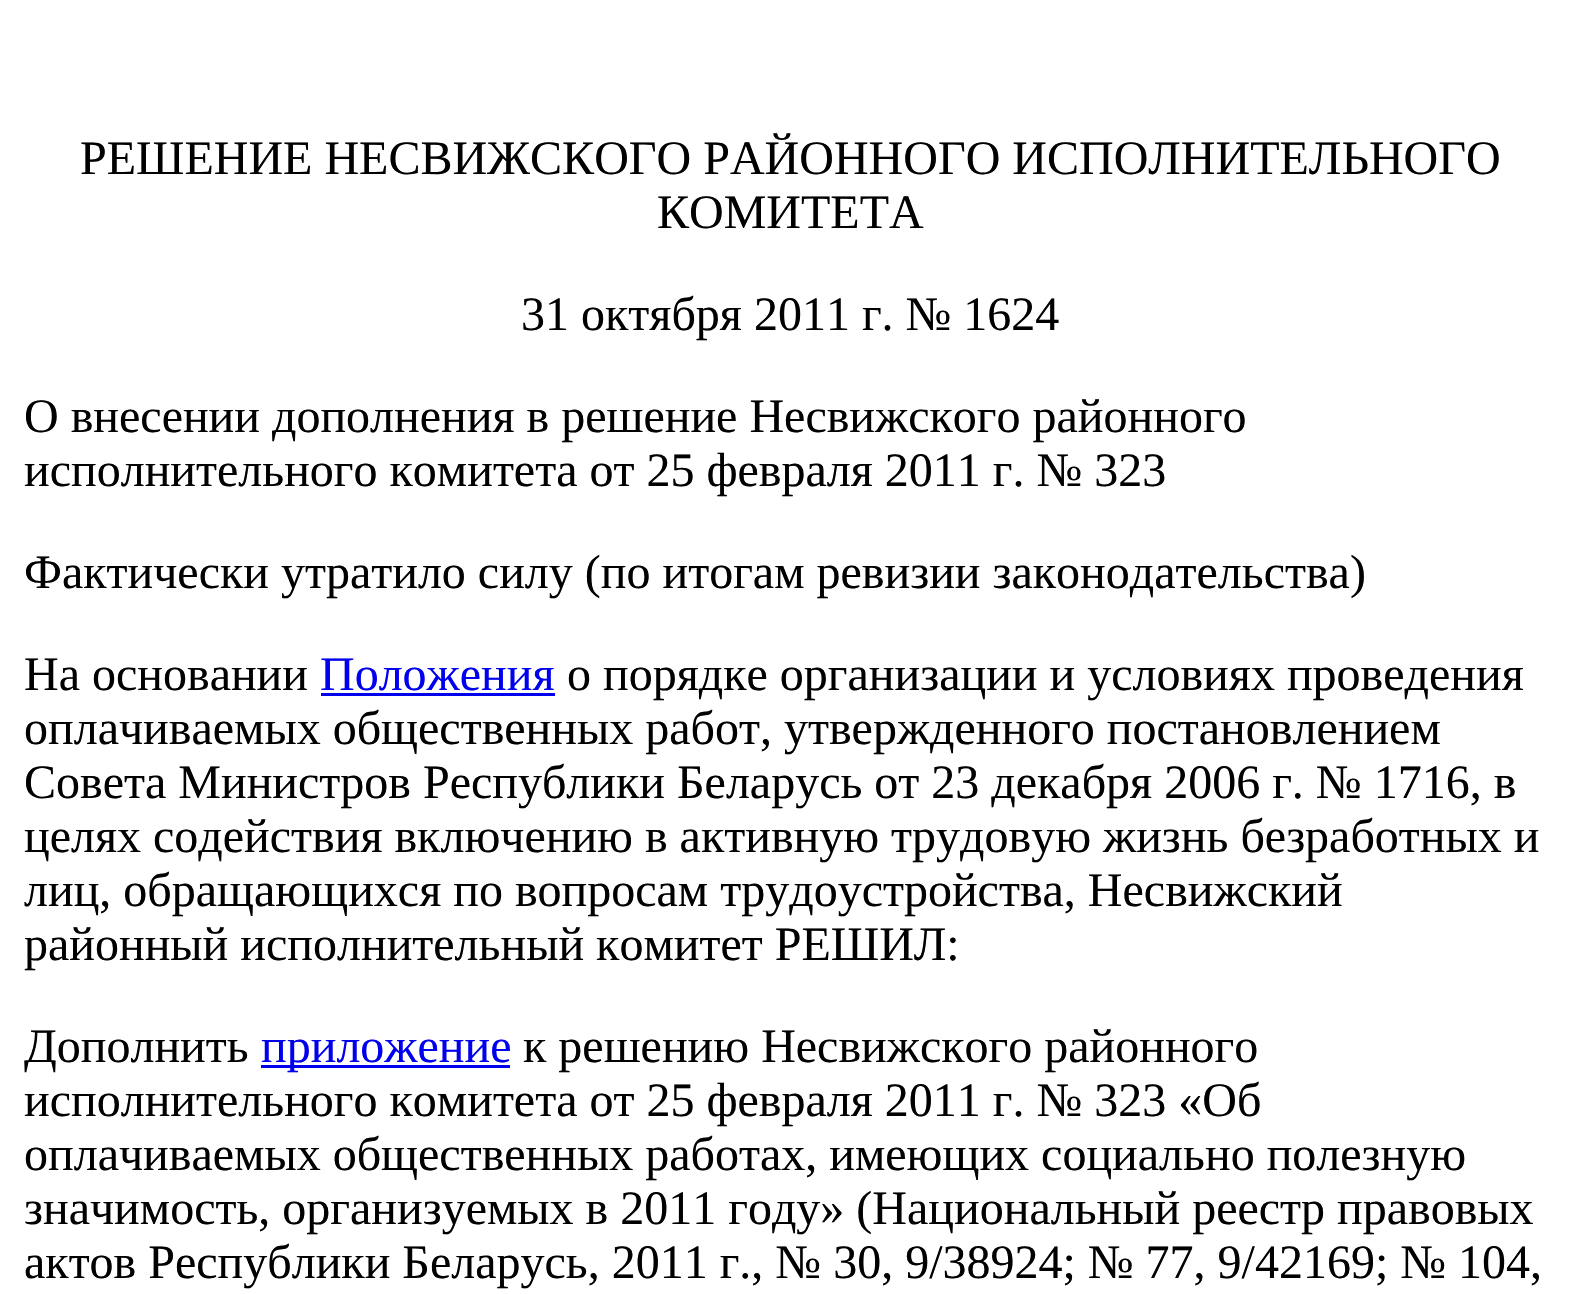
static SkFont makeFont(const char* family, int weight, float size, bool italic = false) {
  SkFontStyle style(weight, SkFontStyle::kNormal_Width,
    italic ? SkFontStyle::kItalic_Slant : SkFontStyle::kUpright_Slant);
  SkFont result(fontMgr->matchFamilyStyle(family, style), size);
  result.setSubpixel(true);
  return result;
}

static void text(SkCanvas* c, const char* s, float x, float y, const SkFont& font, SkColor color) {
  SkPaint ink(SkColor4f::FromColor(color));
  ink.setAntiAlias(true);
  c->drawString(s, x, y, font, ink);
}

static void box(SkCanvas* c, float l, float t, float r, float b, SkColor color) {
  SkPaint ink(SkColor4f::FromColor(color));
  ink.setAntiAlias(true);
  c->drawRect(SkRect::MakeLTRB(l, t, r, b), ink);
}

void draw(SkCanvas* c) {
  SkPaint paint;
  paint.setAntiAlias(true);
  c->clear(0xffffffff);
  SkFont face1 = makeFont("Liberation Serif", 400, 48);
  text(c, "РЕШЕНИЕ НЕСВИЖСКОГО РАЙОННОГО ИСПОЛНИТЕЛЬНОГО", 80, 174, face1, 0xff000000);
  text(c, "КОМИТЕТА", 657, 228, face1, 0xff000000);
  text(c, "31 октября 2011 г. № 1624", 521, 330, face1, 0xff000000);
  text(c, "О внесении дополнения в решение Несвижского районного", 24, 432, face1, 0xff000000);
  text(c, "исполнительного комитета от 25 февраля 2011 г. № 323", 24, 486, face1, 0xff000000);
  text(c, "Фактически утратило силу (по итогам ревизии законодательства)", 24, 588, face1, 0xff000000);
  text(c, "На основании", 24, 690, face1, 0xff000000);
  text(c, "Положения", 320, 690, face1, 0xff0000ee);
  box(c, 321, 693, 555, 696, 0xff0000ee);
  text(c, "о порядке организации и условиях проведения", 567, 690, face1, 0xff000000);
  text(c, "оплачиваемых общественных работ, утвержденного постановлением", 24, 744, face1, 0xff000000);
  text(c, "Совета Министров Республики Беларусь от 23 декабря 2006 г. № 1716, в", 24, 798, face1, 0xff000000);
  text(c, "целях содействия включению в активную трудовую жизнь безработных и", 24, 852, face1, 0xff000000);
  text(c, "лиц, обращающихся по вопросам трудоустройства, Несвижский", 24, 906, face1, 0xff000000);
  text(c, "районный исполнительный комитет РЕШИЛ:", 24, 960, face1, 0xff000000);
  text(c, "Дополнить", 24, 1062, face1, 0xff000000);
  box(c, 261, 1065, 510, 1068, 0xff0000ee);
  text(c, "приложение", 261, 1062, face1, 0xff0000ee);
  text(c, "к решению Несвижского районного", 523, 1062, face1, 0xff000000);
  text(c, "исполнительного комитета от 25 февраля 2011 г. № 323 «Об", 24, 1116, face1, 0xff000000);
  text(c, "оплачиваемых общественных работах, имеющих социально полезную", 24, 1170, face1, 0xff000000);
  text(c, "значимость, организуемых в 2011 году» (Национальный реестр правовых", 24, 1224, face1, 0xff000000);
  text(c, "актов Республики Беларусь, 2011 г., № 30, 9/38924; № 77, 9/42169; № 104,", 24, 1278, face1, 0xff000000);
}
